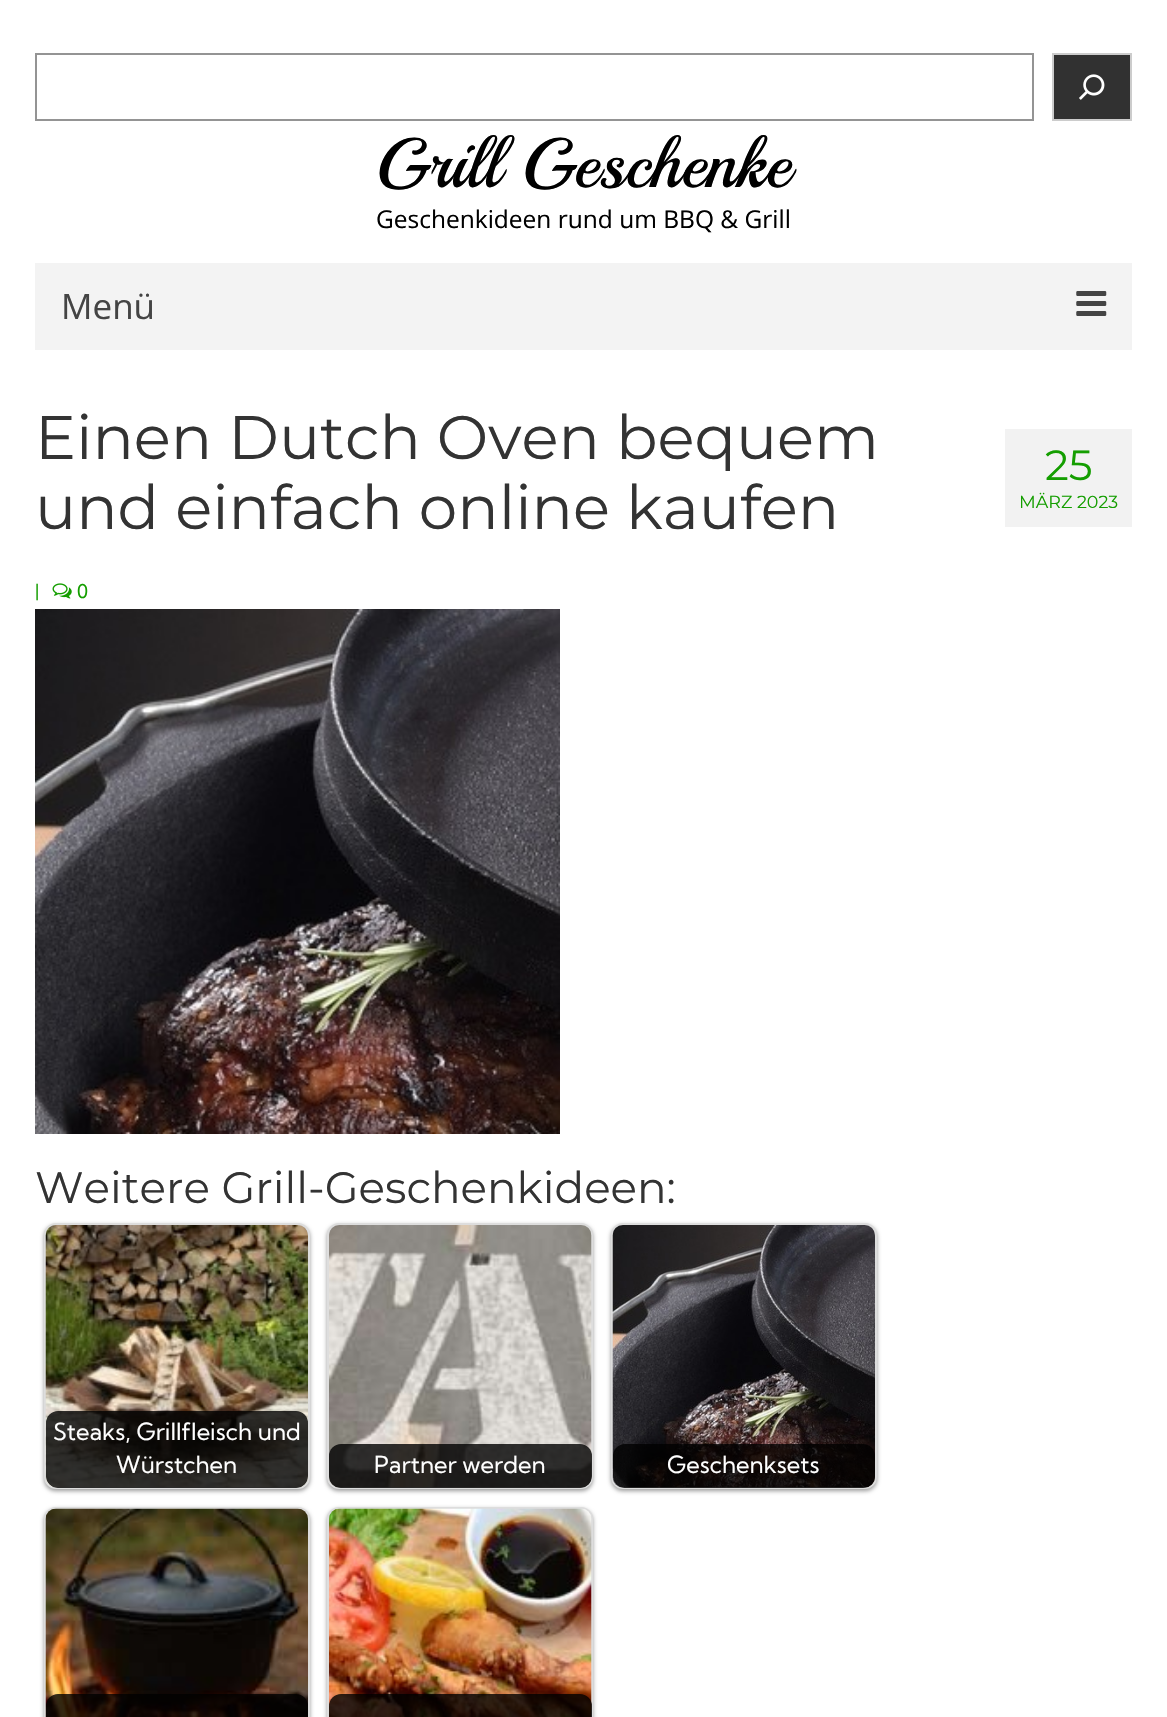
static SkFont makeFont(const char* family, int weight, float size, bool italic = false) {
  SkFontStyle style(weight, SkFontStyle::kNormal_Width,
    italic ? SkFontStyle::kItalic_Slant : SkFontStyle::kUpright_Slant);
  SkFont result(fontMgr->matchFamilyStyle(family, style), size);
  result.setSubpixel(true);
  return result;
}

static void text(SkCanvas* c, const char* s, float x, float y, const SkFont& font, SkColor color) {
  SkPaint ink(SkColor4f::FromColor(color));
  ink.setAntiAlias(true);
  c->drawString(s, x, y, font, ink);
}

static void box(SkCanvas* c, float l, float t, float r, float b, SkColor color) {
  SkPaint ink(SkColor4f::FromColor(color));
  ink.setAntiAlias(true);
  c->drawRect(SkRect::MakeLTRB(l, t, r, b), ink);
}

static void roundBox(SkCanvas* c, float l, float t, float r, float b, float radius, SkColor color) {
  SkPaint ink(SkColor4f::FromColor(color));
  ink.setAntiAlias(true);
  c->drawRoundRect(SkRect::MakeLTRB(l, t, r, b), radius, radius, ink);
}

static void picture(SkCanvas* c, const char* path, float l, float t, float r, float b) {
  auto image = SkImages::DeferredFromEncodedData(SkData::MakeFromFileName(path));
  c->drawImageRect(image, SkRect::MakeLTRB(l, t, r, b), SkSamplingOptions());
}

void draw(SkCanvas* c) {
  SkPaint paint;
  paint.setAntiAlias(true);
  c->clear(0xffffffff);
  paint.setStyle(SkPaint::kStroke_Style);
  paint.setStrokeWidth(2);
  paint.setColor(0xff949494);
  c->drawRect(SkRect::MakeLTRB(36, 54, 1033, 120), paint);
  paint.setStyle(SkPaint::kFill_Style);
  paint.setColor(0xff313131);
  c->drawRect(SkRect::MakeLTRB(1053, 54, 1131, 120), paint);
  paint.setStyle(SkPaint::kStroke_Style);
  paint.setColor(0xffcccccc);
  c->drawRect(SkRect::MakeLTRB(1053, 54, 1131, 120), paint);
  picture(c, "img_01.png", 1079, 74, 1105, 100);
  SkFont face1 = makeFont("Playball", 400, 70);
  text(c, "Grill Geschenke", 376, 187, face1, 0xff000000);
  SkFont face2 = makeFont("Open Sans", 400, 24.5f);
  text(c, "Geschenkideen rund um BBQ & Grill", 376, 228, face2, 0xff000000);
  box(c, 35, 263, 1132, 350, 0xfff3f3f3);
  SkFont face3 = makeFont("Open Sans", 400, 35);
  text(c, "Menü", 61, 319, face3, 0xff444444);
  picture(c, "img_02.png", 1076, 291, 1107, 316);
  SkFont face4 = makeFont("Montserrat", 100, 61.25f);
  text(c, "Einen Dutch Oven bequem", 35, 459, face4, 0xff333333);
  text(c, "und einfach online kaufen", 35, 529, face4, 0xff333333);
  SkFont face5 = makeFont("Kumbh Sans", 400, 19);
  text(c, "|", 35, 598, face5, 0xff149e00);
  picture(c, "img_03.png", 52, 583, 72, 599);
  text(c, "0", 77, 598, face5, 0xff149e00);
  box(c, 1005, 429, 1132, 527, 0xfff2f2f2);
  SkFont face6 = makeFont("Montserrat", 100, 42);
  text(c, "25", 1045, 480, face6, 0xff149e00);
  SkFont face7 = makeFont("Montserrat", 100, 17.5f);
  text(c, "MÄRZ 2023", 1019, 508, face7, 0xff149e00);
  picture(c, "img_04.png", 35, 609, 560, 1134);
  SkFont face8 = makeFont("Montserrat", 100, 43.75f);
  text(c, "Weitere Grill-Geschenkideen:", 35, 1203, face8, 0xff333333);
  paint.setStyle(SkPaint::kFill_Style);
  paint.setColor(0x66000000);
  paint.setMaskFilter(SkMaskFilter::MakeBlur(kNormal_SkBlurStyle, 2));
  c->drawRoundRect(SkRect::MakeLTRB(44, 1225, 310, 1491), 12, 12, paint);
  paint.setMaskFilter(nullptr);
  paint.setStyle(SkPaint::kStroke_Style);
  paint.setColor(0xffdddddd);
  c->drawRoundRect(SkRect::MakeLTRB(45, 1224, 309, 1488), 11, 11, paint);
  picture(c, "img_05.png", 45, 1225, 308, 1488);
  c->save();
  c->clipPath(SkPathBuilder().moveTo(57, 1225).lineTo(297, 1225).cubicTo(303, 1225, 308, 1230, 308, 1236).lineTo(308, 1477).cubicTo(308, 1483, 303, 1488, 297, 1488).lineTo(57, 1488).cubicTo(51, 1488, 46, 1483, 46, 1477).lineTo(46, 1236).cubicTo(46, 1230, 51, 1225, 57, 1225).close().detach(), true);
  roundBox(c, 46, 1411, 308, 1488, 12, 0xcc000000);
  c->restore();
  SkFont face9 = makeFont("Kumbh Sans", 400, 23.6f);
  text(c, "Steaks, Grillfleisch und", 53, 1440, face9, 0xffffffff);
  text(c, "Würstchen", 116, 1473, face9, 0xffffffff);
  paint.setStyle(SkPaint::kFill_Style);
  paint.setColor(0x66000000);
  paint.setMaskFilter(SkMaskFilter::MakeBlur(kNormal_SkBlurStyle, 2));
  c->drawRoundRect(SkRect::MakeLTRB(327, 1225, 593, 1491), 12, 12, paint);
  paint.setMaskFilter(nullptr);
  paint.setStyle(SkPaint::kStroke_Style);
  paint.setColor(0xffdddddd);
  c->drawRoundRect(SkRect::MakeLTRB(328, 1224, 592, 1488), 11, 11, paint);
  picture(c, "img_06.png", 329, 1225, 592, 1488);
  c->save();
  c->clipPath(SkPathBuilder().moveTo(340, 1225).lineTo(581, 1225).cubicTo(587, 1225, 592, 1230, 592, 1236).lineTo(592, 1477).cubicTo(592, 1483, 587, 1488, 581, 1488).lineTo(340, 1488).cubicTo(334, 1488, 329, 1483, 329, 1477).lineTo(329, 1236).cubicTo(329, 1230, 334, 1225, 340, 1225).close().detach(), true);
  roundBox(c, 329, 1444, 592, 1488, 12, 0xcc000000);
  c->restore();
  text(c, "Partner werden", 374, 1473, face9, 0xffffffff);
  paint.setStyle(SkPaint::kFill_Style);
  paint.setColor(0x66000000);
  paint.setMaskFilter(SkMaskFilter::MakeBlur(kNormal_SkBlurStyle, 2));
  c->drawRoundRect(SkRect::MakeLTRB(611, 1225, 877, 1491), 12, 12, paint);
  paint.setMaskFilter(nullptr);
  paint.setStyle(SkPaint::kStroke_Style);
  paint.setColor(0xffdddddd);
  c->drawRoundRect(SkRect::MakeLTRB(612, 1224, 876, 1488), 11, 11, paint);
  picture(c, "img_07.png", 612, 1225, 875, 1488);
  c->save();
  c->clipPath(SkPathBuilder().moveTo(624, 1225).lineTo(864, 1225).cubicTo(870, 1225, 875, 1230, 875, 1236).lineTo(875, 1477).cubicTo(875, 1483, 870, 1488, 864, 1488).lineTo(624, 1488).cubicTo(618, 1488, 613, 1483, 613, 1477).lineTo(613, 1236).cubicTo(613, 1230, 618, 1225, 624, 1225).close().detach(), true);
  roundBox(c, 613, 1444, 875, 1488, 12, 0xcc000000);
  c->restore();
  text(c, "Geschenksets", 667, 1473, face9, 0xffffffff);
  paint.setStyle(SkPaint::kFill_Style);
  paint.setColor(0x66000000);
  paint.setMaskFilter(SkMaskFilter::MakeBlur(kNormal_SkBlurStyle, 2));
  c->drawRoundRect(SkRect::MakeLTRB(44, 1509, 310, 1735), 12, 12, paint);
  paint.setMaskFilter(nullptr);
  paint.setStyle(SkPaint::kStroke_Style);
  paint.setColor(0xffdddddd);
  c->drawRoundRect(SkRect::MakeLTRB(45, 1508, 309, 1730), 11, 11, paint);
  picture(c, "img_08.png", 45, 1508, 308, 1717);
  roundBox(c, 46, 1694, 308, 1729, 12, 0xcc000000);
  paint.setStyle(SkPaint::kFill_Style);
  paint.setColor(0x66000000);
  paint.setMaskFilter(SkMaskFilter::MakeBlur(kNormal_SkBlurStyle, 2));
  c->drawRoundRect(SkRect::MakeLTRB(327, 1509, 593, 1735), 12, 12, paint);
  paint.setMaskFilter(nullptr);
  paint.setStyle(SkPaint::kStroke_Style);
  paint.setColor(0xffdddddd);
  c->drawRoundRect(SkRect::MakeLTRB(328, 1508, 592, 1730), 11, 11, paint);
  picture(c, "img_09.png", 329, 1508, 592, 1717);
  roundBox(c, 329, 1694, 592, 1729, 12, 0xcc000000);
}
